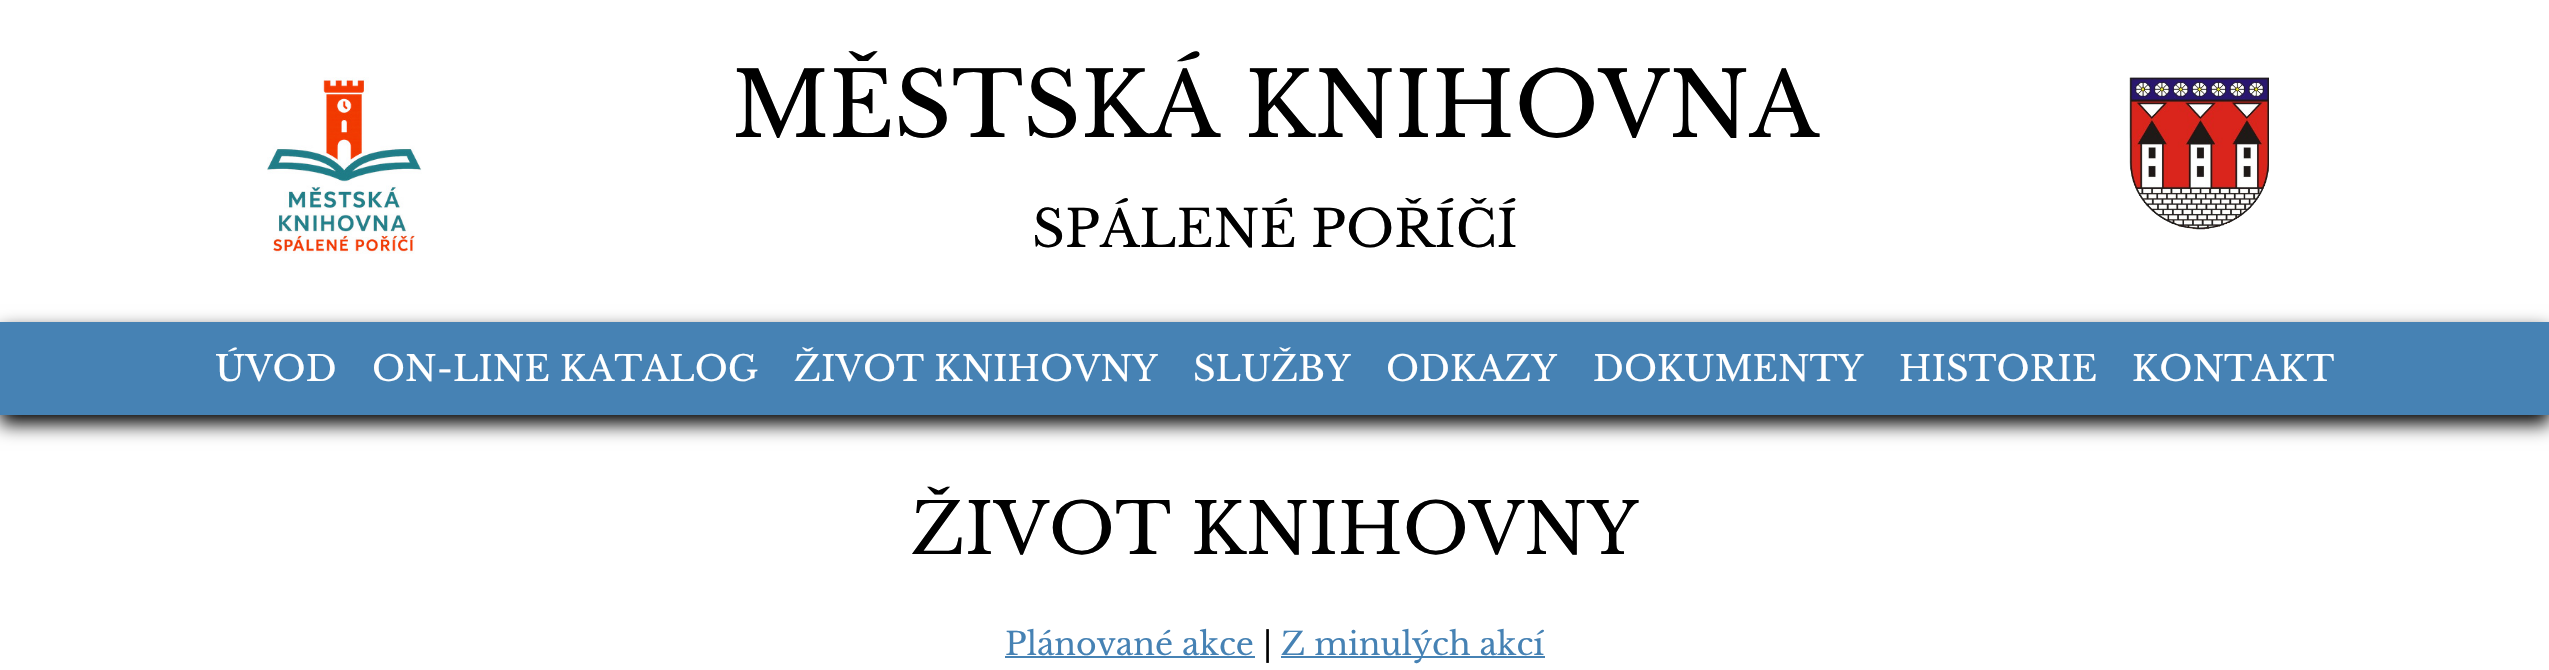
static SkFont makeFont(const char* family, int weight, float size, bool italic = false) {
  SkFontStyle style(weight, SkFontStyle::kNormal_Width,
    italic ? SkFontStyle::kItalic_Slant : SkFontStyle::kUpright_Slant);
  SkFont result(fontMgr->matchFamilyStyle(family, style), size);
  result.setSubpixel(true);
  return result;
}

static void text(SkCanvas* c, const char* s, float x, float y, const SkFont& font, SkColor color) {
  SkPaint ink(SkColor4f::FromColor(color));
  ink.setAntiAlias(true);
  c->drawString(s, x, y, font, ink);
}

static void box(SkCanvas* c, float l, float t, float r, float b, SkColor color) {
  SkPaint ink(SkColor4f::FromColor(color));
  ink.setAntiAlias(true);
  c->drawRect(SkRect::MakeLTRB(l, t, r, b), ink);
}

static void picture(SkCanvas* c, const char* path, float l, float t, float r, float b) {
  auto image = SkImages::DeferredFromEncodedData(SkData::MakeFromFileName(path));
  c->drawImageRect(image, SkRect::MakeLTRB(l, t, r, b), SkSamplingOptions());
}

void draw(SkCanvas* c) {
  SkPaint paint;
  paint.setAntiAlias(true);
  c->clear(0xffffffff);
  picture(c, "img_01.png", 267, 77, 422, 254);
  SkFont face1 = makeFont("Libre Baskerville", 400, 89.25f);
  text(c, "MĚSTSKÁ KNIHOVNA", 732, 137, face1, 0xff000000);
  SkFont face2 = makeFont("Libre Baskerville", 400, 51);
  text(c, "SPÁLENÉ POŘÍČÍ", 1032, 247, face2, 0xff000000);
  picture(c, "img_02.png", 2129, 77, 2269, 230);
  paint.setColor(0xff000000);
  paint.setMaskFilter(SkMaskFilter::MakeBlur(kNormal_SkBlurStyle, 9));
  c->drawRect(SkRect::MakeLTRB(0, 331, 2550, 424), paint);
  paint.setMaskFilter(nullptr);
  box(c, 0, 322, 2549, 415, 0xff4682b4);
  SkFont face3 = makeFont("Libre Baskerville", 400, 35);
  text(c, "ÚVOD", 215, 381, face3, 0xffffffff);
  text(c, "ON-LINE KATALOG", 372, 381, face3, 0xffffffff);
  text(c, "ŽIVOT KNIHOVNY", 794, 381, face3, 0xffffffff);
  text(c, "SLUŽBY", 1193, 381, face3, 0xffffffff);
  text(c, "ODKAZY", 1386, 381, face3, 0xffffffff);
  text(c, "DOKUMENTY", 1593, 381, face3, 0xffffffff);
  text(c, "HISTORIE", 1899, 381, face3, 0xffffffff);
  text(c, "KONTAKT", 2132, 381, face3, 0xffffffff);
  SkFont face4 = makeFont("Libre Baskerville", 400, 70);
  text(c, "ŽIVOT KNIHOVNY", 911, 554, face4, 0xff000000);
  SkFont face5 = makeFont("Libre Baskerville", 400, 31.5f);
  text(c, "Plánované akce", 1005, 655, face5, 0xff4682b4);
  box(c, 1005, 656, 1255, 658, 0xff4682b4);
  text(c, "|", 1263, 655, face5, 0xff000000);
  box(c, 1281, 656, 1545, 658, 0xff4682b4);
  text(c, "Z minulých akcí", 1281, 655, face5, 0xff4682b4);
}
